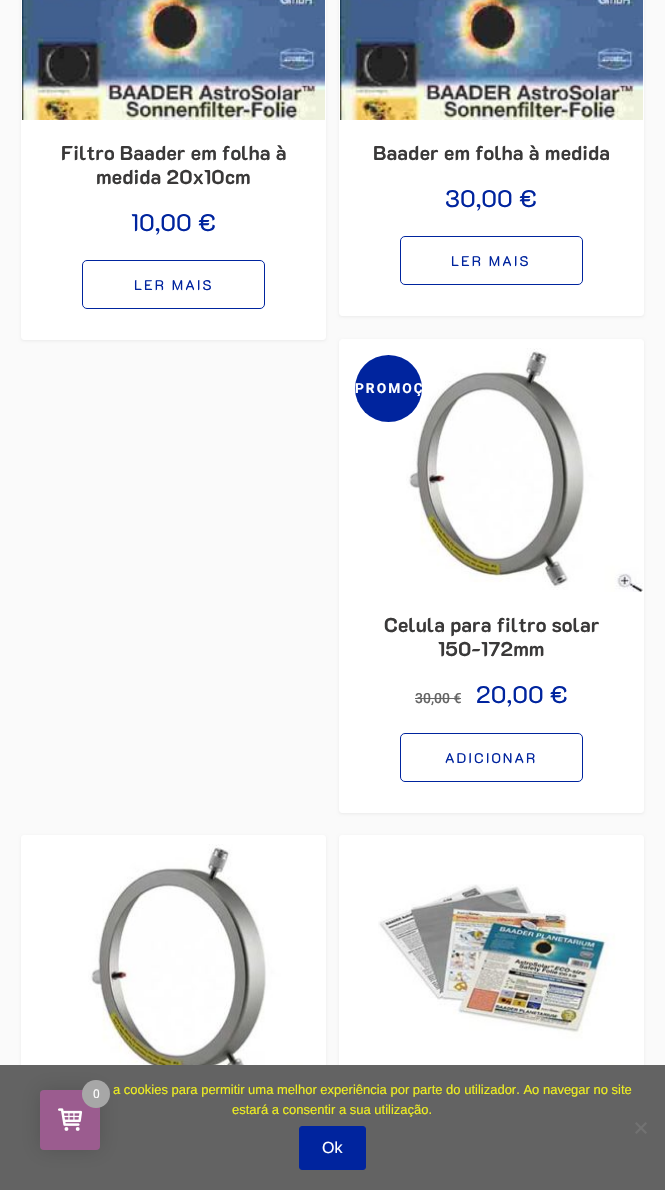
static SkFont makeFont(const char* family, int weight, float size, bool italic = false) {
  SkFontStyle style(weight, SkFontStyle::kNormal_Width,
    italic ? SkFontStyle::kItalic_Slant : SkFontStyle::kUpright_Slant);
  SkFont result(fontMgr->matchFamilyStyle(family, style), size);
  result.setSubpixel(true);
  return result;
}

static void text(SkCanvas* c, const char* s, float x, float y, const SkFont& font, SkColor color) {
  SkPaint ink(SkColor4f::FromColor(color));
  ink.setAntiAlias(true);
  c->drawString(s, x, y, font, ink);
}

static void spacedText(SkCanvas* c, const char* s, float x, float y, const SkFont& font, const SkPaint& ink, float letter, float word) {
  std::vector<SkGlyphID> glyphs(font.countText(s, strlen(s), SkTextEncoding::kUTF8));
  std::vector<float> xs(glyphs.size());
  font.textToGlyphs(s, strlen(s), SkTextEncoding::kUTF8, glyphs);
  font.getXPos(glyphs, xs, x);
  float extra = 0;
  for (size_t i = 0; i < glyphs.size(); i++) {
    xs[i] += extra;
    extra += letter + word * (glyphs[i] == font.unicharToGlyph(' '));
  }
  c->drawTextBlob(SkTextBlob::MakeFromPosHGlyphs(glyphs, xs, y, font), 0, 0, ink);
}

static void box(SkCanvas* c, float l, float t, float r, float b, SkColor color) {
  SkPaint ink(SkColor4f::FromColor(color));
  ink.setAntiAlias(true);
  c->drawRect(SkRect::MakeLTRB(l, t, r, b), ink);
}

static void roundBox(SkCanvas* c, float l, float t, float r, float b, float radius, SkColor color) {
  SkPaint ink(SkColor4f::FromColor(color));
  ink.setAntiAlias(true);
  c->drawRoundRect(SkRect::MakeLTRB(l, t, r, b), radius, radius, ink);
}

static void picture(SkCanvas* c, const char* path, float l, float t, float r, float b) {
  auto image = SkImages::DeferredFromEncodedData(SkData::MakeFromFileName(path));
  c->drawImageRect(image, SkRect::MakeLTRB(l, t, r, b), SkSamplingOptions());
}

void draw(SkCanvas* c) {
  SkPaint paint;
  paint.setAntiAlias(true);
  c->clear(0xfffafafa);
  paint.setColor(0x0f000000);
  paint.setMaskFilter(SkMaskFilter::MakeBlur(kNormal_SkBlurStyle, 1.5f));
  c->drawRoundRect(SkRect::MakeLTRB(21, -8, 326, 341), 3, 3, paint);
  paint.setMaskFilter(nullptr);
  paint.setColor(0xffffffff);
  c->drawRoundRect(SkRect::MakeLTRB(21.5f, -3.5f, 325.5f, 339.5f), 2.5f, 2.5f, paint);
  paint.setStyle(SkPaint::kStroke_Style);
  paint.setStrokeWidth(1);
  c->drawRoundRect(SkRect::MakeLTRB(21.5f, -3.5f, 325.5f, 339.5f), 2.5f, 2.5f, paint);
  picture(c, "img_01.png", 22, 0, 325, 120);
  SkFont face1 = makeFont("K2D", 700, 20);
  text(c, "Filtro Baader em folha à", 61, 160, face1, 0xff3a3939);
  text(c, "medida 20x10cm", 96, 184, face1, 0xff3a3939);
  SkFont face2 = makeFont("K2D", 400, 24);
  text(c, "10,00 €", 131, 231, face2, 0xff00249e);
  paint.setColor(0xff00249e);
  c->drawRoundRect(SkRect::MakeLTRB(82.5f, 260.5f, 264.5f, 308.5f), 4.5f, 4.5f, paint);
  SkFont face3 = makeFont("K2D", 400, 14);
  paint.setStyle(SkPaint::kFill_Style);
  spacedText(c, "LER MAIS", 134, 290, face3, paint, 2, 0);
  paint.setColor(0x0f000000);
  paint.setMaskFilter(SkMaskFilter::MakeBlur(kNormal_SkBlurStyle, 1.5f));
  c->drawRoundRect(SkRect::MakeLTRB(339, -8, 644, 317), 3, 3, paint);
  paint.setMaskFilter(nullptr);
  paint.setColor(0xffffffff);
  c->drawRoundRect(SkRect::MakeLTRB(339.5f, -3.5f, 643.5f, 315.5f), 2.5f, 2.5f, paint);
  paint.setStyle(SkPaint::kStroke_Style);
  c->drawRoundRect(SkRect::MakeLTRB(339.5f, -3.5f, 643.5f, 315.5f), 2.5f, 2.5f, paint);
  picture(c, "img_01.png", 340, 0, 643, 120);
  text(c, "Baader em folha à medida", 373, 160, face1, 0xff3a3939);
  text(c, "30,00 €", 445, 207, face2, 0xff00249e);
  paint.setColor(0xff00249e);
  c->drawRoundRect(SkRect::MakeLTRB(400.5f, 236.5f, 582.5f, 284.5f), 4.5f, 4.5f, paint);
  paint.setStyle(SkPaint::kFill_Style);
  spacedText(c, "LER MAIS", 451, 266, face3, paint, 2, 0);
  paint.setColor(0x0f000000);
  paint.setMaskFilter(SkMaskFilter::MakeBlur(kNormal_SkBlurStyle, 1.5f));
  c->drawRoundRect(SkRect::MakeLTRB(339, 340, 644, 814), 3, 3, paint);
  paint.setMaskFilter(nullptr);
  paint.setColor(0xffffffff);
  c->drawRoundRect(SkRect::MakeLTRB(339.5f, 339.5f, 643.5f, 812.5f), 2.5f, 2.5f, paint);
  paint.setStyle(SkPaint::kStroke_Style);
  c->drawRoundRect(SkRect::MakeLTRB(339.5f, 339.5f, 643.5f, 812.5f), 2.5f, 2.5f, paint);
  picture(c, "img_02.png", 406, 348, 643, 592);
  paint.setStyle(SkPaint::kFill_Style);
  paint.setColor(0xff00249e);
  c->drawCircle(388.5f, 388.5f, 33.5f, paint);
  c->save();
  c->clipPath(SkPathBuilder().moveTo(388.5f, 355).cubicTo(407, 355, 422, 370, 422, 388.5f).cubicTo(422, 407, 407, 422, 388.5f, 422).cubicTo(370, 422, 355, 407, 355, 388.5f).cubicTo(355, 370, 370, 355, 388.5f, 355).close().detach(), true);
  SkFont face4 = makeFont("Roboto", 700, 13.75f);
  paint.setColor(0xffffffff);
  spacedText(c, "PROMOÇ", 355, 393, face4, paint, 2, 0);
  c->restore();
  text(c, "Celula para filtro solar", 384, 632, face1, 0xff3a3939);
  text(c, "150-172mm", 438, 656, face1, 0xff3a3939);
  SkFont face5 = makeFont("Roboto", 500, 14);
  text(c, "30,00 €", 415, 703, face5, 0xff656565);
  box(c, 415, 698, 461, 699, 0xff656565);
  text(c, "20,00 €", 476, 703, face2, 0xff00249e);
  paint.setStyle(SkPaint::kStroke_Style);
  paint.setColor(0xff00249e);
  c->drawRoundRect(SkRect::MakeLTRB(400.5f, 733.5f, 582.5f, 781.5f), 4.5f, 4.5f, paint);
  paint.setStyle(SkPaint::kFill_Style);
  spacedText(c, "ADICIONAR", 445, 763, face3, paint, 2, 0);
  paint.setColor(0x0f000000);
  paint.setMaskFilter(SkMaskFilter::MakeBlur(kNormal_SkBlurStyle, 1.5f));
  c->drawRoundRect(SkRect::MakeLTRB(21, 836, 326, 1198), 3, 3, paint);
  paint.setMaskFilter(nullptr);
  roundBox(c, 21, 835, 326, 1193, 3, 0xffffffff);
  picture(c, "img_03.png", 88, 844, 325, 1065);
  paint.setMaskFilter(SkMaskFilter::MakeBlur(kNormal_SkBlurStyle, 1.5f));
  c->drawRoundRect(SkRect::MakeLTRB(339, 836, 644, 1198), 3, 3, paint);
  paint.setMaskFilter(nullptr);
  roundBox(c, 339, 835, 644, 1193, 3, 0xffffffff);
  picture(c, "img_04.png", 378, 884, 643, 1065);
  box(c, 0, 1065, 665, 1190, 0xff636363);
  paint.setColor(0x26000000);
  paint.setMaskFilter(SkMaskFilter::MakeBlur(kNormal_SkBlurStyle, 10));
  c->drawRoundRect(SkRect::MakeLTRB(40, 1090, 100, 1150), 4, 4, paint);
  paint.setMaskFilter(nullptr);
  roundBox(c, 40, 1090, 100, 1150, 4, 0xff9b5c8f);
  paint.setColor(0xffa7a7a7);
  c->drawCircle(96, 1094, 14, paint);
  SkFont face6 = makeFont("Roboto", 400, 12);
  text(c, "0", 93, 1098, face6, 0xffffffff);
  picture(c, "img_05.png", 58, 1108, 83, 1131);
  SkFont face7 = makeFont("Liberation Sans", 400, 13);
  text(c, "a cookies para permitir uma melhor experiência por parte do utilizador. Ao navegar no site", 113, 1094, face7, 0xffeeee22);
  text(c, "estará a consentir a sua utilização.", 232, 1114, face7, 0xffeeee22);
  paint.setColor(0xff727272);
  c->drawPath(SkPathBuilder().moveTo(645.5f, 1122).lineTo(647, 1123.5f).lineTo(636.5f, 1134).lineTo(635, 1132.5f).close().detach(), paint);
  c->drawPath(SkPathBuilder().moveTo(635, 1123.5f).lineTo(636.5f, 1122).lineTo(647, 1132.5f).lineTo(645.5f, 1134).close().detach(), paint);
  paint.setColor(0xff00249e);
  c->drawRoundRect(SkRect::MakeLTRB(299.5f, 1126.5f, 365.5f, 1169.5f), 2.5f, 2.5f, paint);
  paint.setStyle(SkPaint::kStroke_Style);
  c->drawRoundRect(SkRect::MakeLTRB(299.5f, 1126.5f, 365.5f, 1169.5f), 2.5f, 2.5f, paint);
  SkFont face8 = makeFont("Liberation Sans", 400, 16);
  text(c, "Ok", 322, 1153, face8, 0xffffffff);
}
